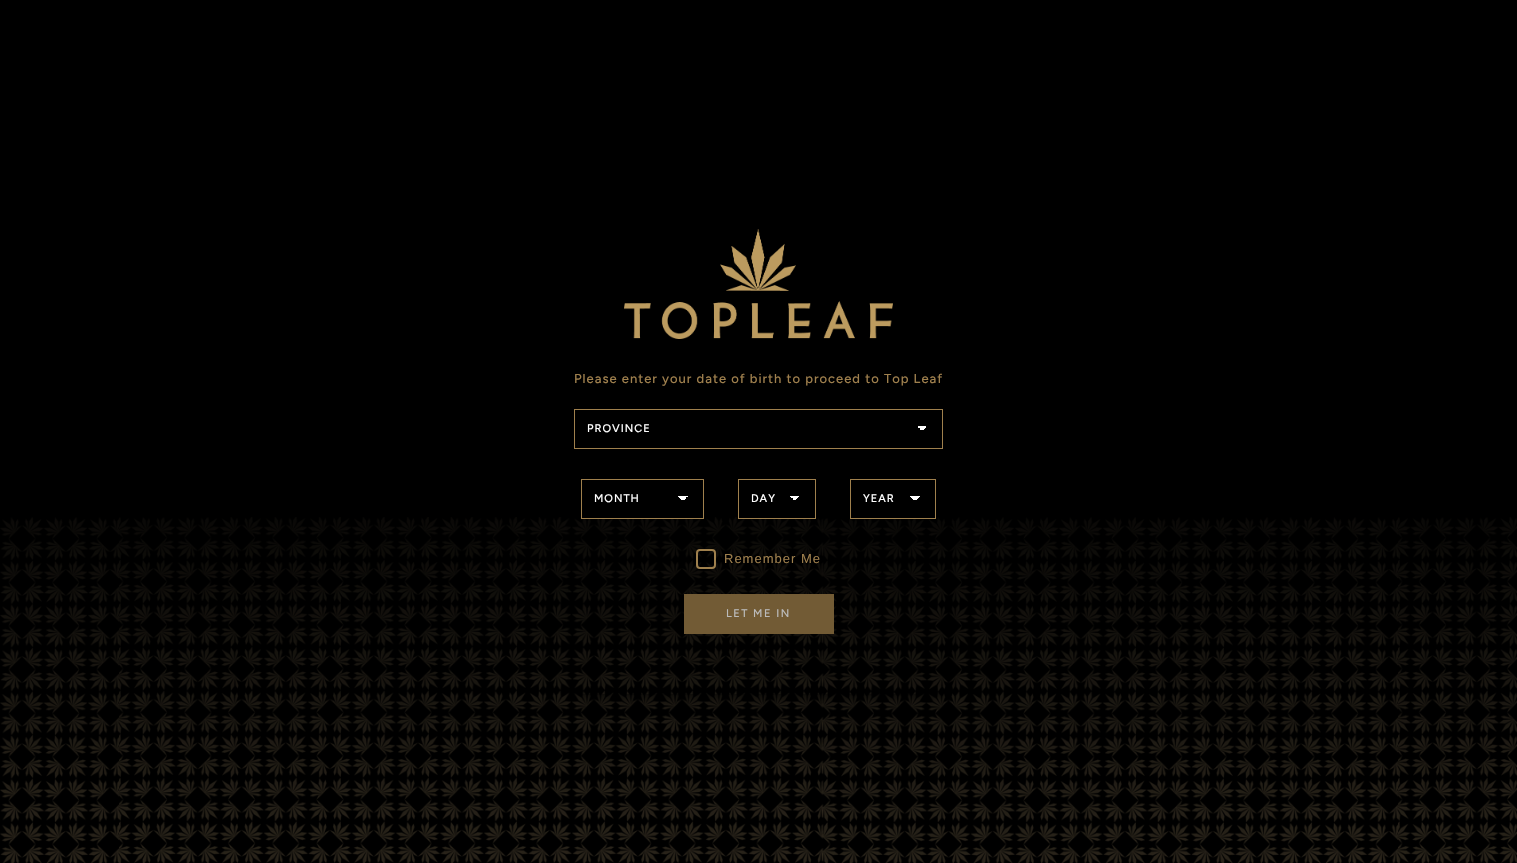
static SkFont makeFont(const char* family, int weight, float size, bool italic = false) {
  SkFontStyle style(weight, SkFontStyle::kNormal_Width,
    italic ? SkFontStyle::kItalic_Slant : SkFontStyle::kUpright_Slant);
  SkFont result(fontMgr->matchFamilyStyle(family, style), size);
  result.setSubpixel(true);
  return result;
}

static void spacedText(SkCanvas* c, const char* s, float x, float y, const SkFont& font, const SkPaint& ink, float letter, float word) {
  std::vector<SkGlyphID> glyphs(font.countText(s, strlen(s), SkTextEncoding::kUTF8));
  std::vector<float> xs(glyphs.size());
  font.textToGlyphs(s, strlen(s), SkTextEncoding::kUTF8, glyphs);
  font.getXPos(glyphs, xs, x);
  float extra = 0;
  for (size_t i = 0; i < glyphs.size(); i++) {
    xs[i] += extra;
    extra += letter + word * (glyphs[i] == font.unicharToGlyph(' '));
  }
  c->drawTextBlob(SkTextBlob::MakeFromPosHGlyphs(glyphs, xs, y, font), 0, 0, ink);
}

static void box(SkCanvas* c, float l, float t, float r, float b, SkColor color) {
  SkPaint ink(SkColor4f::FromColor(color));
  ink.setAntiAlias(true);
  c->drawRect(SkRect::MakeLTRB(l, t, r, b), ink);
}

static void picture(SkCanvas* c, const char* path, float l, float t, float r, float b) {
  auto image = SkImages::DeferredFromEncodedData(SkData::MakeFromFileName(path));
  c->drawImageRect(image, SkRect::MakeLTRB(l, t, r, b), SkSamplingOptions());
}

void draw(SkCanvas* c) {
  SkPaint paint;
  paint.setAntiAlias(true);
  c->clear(0xff000000);
  picture(c, "img_01.png", 0, 517, 1517, 863);
  c->save();
  c->clipPath(SkPathBuilder(SkPathFillType::kEvenOdd).moveTo(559, 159).lineTo(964, 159).lineTo(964, 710).lineTo(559, 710).close().moveTo(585, 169).lineTo(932, 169).cubicTo(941, 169, 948, 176, 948, 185).lineTo(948, 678).cubicTo(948, 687, 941, 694, 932, 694).lineTo(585, 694).cubicTo(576, 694, 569, 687, 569, 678).lineTo(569, 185).cubicTo(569, 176, 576, 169, 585, 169).close().detach(), true);
  paint.setColor(0x78000000);
  paint.setMaskFilter(SkMaskFilter::MakeBlur(kNormal_SkBlurStyle, 3.5f));
  c->drawRoundRect(SkRect::MakeLTRB(571, 171, 952, 698), 17, 17, paint);
  paint.setMaskFilter(nullptr);
  c->restore();
  picture(c, "img_02.png", 624, 229, 893, 339);
  SkFont face1 = makeFont("Figtree", 500, 13);
  paint.setColor(0xff9f804d);
  spacedText(c, "Please enter your date of birth to proceed to Top Leaf", 574, 383, face1, paint, 1, 0);
  {
    const SkColor colors[] = {0xffffffff, 0xff000000};
    const float stops[] = {0.5f, 0.5f};
    const SkPoint ends[] = {{922, 426}, {927, 431}};
    paint.setShader(SkGradientShader::MakeLinear(ends, colors, stops, 2, SkTileMode::kClamp));
    paint.setAlpha(255);
  }
  c->drawRect(SkRect::MakeLTRB(922, 426, 927, 430), paint);
  {
    const SkColor colors[] = {0xff000000, 0xffffffff};
    const float stops[] = {0.5f, 0.5f};
    const SkPoint ends[] = {{917, 431}, {922, 426}};
    paint.setShader(SkGradientShader::MakeLinear(ends, colors, stops, 2, SkTileMode::kClamp));
    paint.setAlpha(255);
  }
  c->drawRect(SkRect::MakeLTRB(917, 426, 922, 430), paint);
  paint.setStyle(SkPaint::kStroke_Style);
  paint.setStrokeWidth(1);
  paint.setShader(nullptr);
  paint.setColor(0xff9f804d);
  c->drawRect(SkRect::MakeLTRB(574.5f, 409.5f, 942.5f, 448.5f), paint);
  SkFont face2 = makeFont("Figtree", 500, 11);
  paint.setStyle(SkPaint::kFill_Style);
  paint.setColor(0xffffffff);
  spacedText(c, "PROVINCE", 587, 432, face2, paint, 1, 0);
  box(c, 583, 517, 693, 518, 0xff000000);
  {
    const SkColor colors[] = {0xffffffff, 0xff000000};
    const float stops[] = {0.5f, 0.5f};
    const SkPoint ends[] = {{683, 496}, {688, 501}};
    paint.setShader(SkGradientShader::MakeLinear(ends, colors, stops, 2, SkTileMode::kClamp));
    paint.setAlpha(255);
  }
  c->drawRect(SkRect::MakeLTRB(683, 496, 688, 500), paint);
  {
    const SkColor colors[] = {0xff000000, 0xffffffff};
    const float stops[] = {0.5f, 0.5f};
    const SkPoint ends[] = {{678, 501}, {683, 496}};
    paint.setShader(SkGradientShader::MakeLinear(ends, colors, stops, 2, SkTileMode::kClamp));
    paint.setAlpha(255);
  }
  c->drawRect(SkRect::MakeLTRB(678, 496, 683, 500), paint);
  paint.setStyle(SkPaint::kStroke_Style);
  paint.setShader(nullptr);
  paint.setColor(0xff9f804d);
  c->drawRect(SkRect::MakeLTRB(581.5f, 479.5f, 703.5f, 518.5f), paint);
  paint.setStyle(SkPaint::kFill_Style);
  paint.setColor(0xffffffff);
  spacedText(c, "MONTH", 594, 502, face2, paint, 1, 0);
  box(c, 759, 517, 805, 518, 0xff000000);
  {
    const SkColor colors[] = {0xffffffff, 0xff000000};
    const float stops[] = {0.5f, 0.5f};
    const SkPoint ends[] = {{795, 496}, {800, 501}};
    paint.setShader(SkGradientShader::MakeLinear(ends, colors, stops, 2, SkTileMode::kClamp));
    paint.setAlpha(255);
  }
  c->drawRect(SkRect::MakeLTRB(795, 496, 800, 500), paint);
  {
    const SkColor colors[] = {0xff000000, 0xffffffff};
    const float stops[] = {0.5f, 0.5f};
    const SkPoint ends[] = {{790, 501}, {795, 496}};
    paint.setShader(SkGradientShader::MakeLinear(ends, colors, stops, 2, SkTileMode::kClamp));
    paint.setAlpha(255);
  }
  c->drawRect(SkRect::MakeLTRB(790, 496, 795, 500), paint);
  paint.setStyle(SkPaint::kStroke_Style);
  paint.setShader(nullptr);
  paint.setColor(0xff9f804d);
  c->drawRect(SkRect::MakeLTRB(738.5f, 479.5f, 815.5f, 518.5f), paint);
  paint.setStyle(SkPaint::kFill_Style);
  paint.setColor(0xffffffff);
  spacedText(c, "DAY", 751, 502, face2, paint, 1, 0);
  {
    const SkColor colors[] = {0xffffffff, 0xff000000};
    const float stops[] = {0.5f, 0.5f};
    const SkPoint ends[] = {{915, 496}, {920, 501}};
    paint.setShader(SkGradientShader::MakeLinear(ends, colors, stops, 2, SkTileMode::kClamp));
    paint.setAlpha(255);
  }
  c->drawRect(SkRect::MakeLTRB(915, 496, 920, 500), paint);
  {
    const SkColor colors[] = {0xff000000, 0xffffffff};
    const float stops[] = {0.5f, 0.5f};
    const SkPoint ends[] = {{910, 501}, {915, 496}};
    paint.setShader(SkGradientShader::MakeLinear(ends, colors, stops, 2, SkTileMode::kClamp));
    paint.setAlpha(255);
  }
  c->drawRect(SkRect::MakeLTRB(910, 496, 915, 500), paint);
  paint.setStyle(SkPaint::kStroke_Style);
  paint.setShader(nullptr);
  paint.setColor(0xff9f804d);
  c->drawRect(SkRect::MakeLTRB(850.5f, 479.5f, 935.5f, 518.5f), paint);
  paint.setStyle(SkPaint::kFill_Style);
  paint.setColor(0xffffffff);
  spacedText(c, "YEAR", 863, 502, face2, paint, 1, 0);
  paint.setStyle(SkPaint::kStroke_Style);
  paint.setStrokeWidth(2);
  paint.setColor(0xff9f804d);
  c->drawRoundRect(SkRect::MakeLTRB(697, 550, 715, 568), 3, 3, paint);
  SkFont face3 = makeFont("Liberation Sans", 400, 13);
  paint.setStyle(SkPaint::kFill_Style);
  spacedText(c, "Remember Me", 724, 563, face3, paint, 1, 0);
  box(c, 684, 594, 834, 634, 0xff725b35);
  paint.setColor(0xffbbbbbb);
  spacedText(c, "LET ME IN", 726, 617, face2, paint, 1.5f, 0);
}
